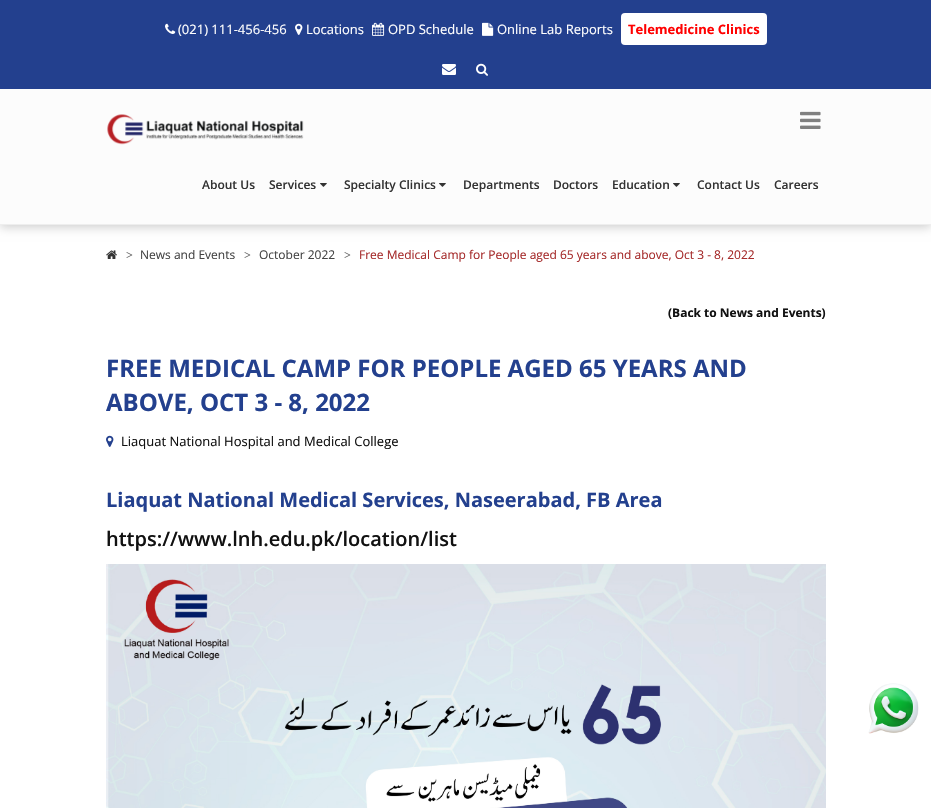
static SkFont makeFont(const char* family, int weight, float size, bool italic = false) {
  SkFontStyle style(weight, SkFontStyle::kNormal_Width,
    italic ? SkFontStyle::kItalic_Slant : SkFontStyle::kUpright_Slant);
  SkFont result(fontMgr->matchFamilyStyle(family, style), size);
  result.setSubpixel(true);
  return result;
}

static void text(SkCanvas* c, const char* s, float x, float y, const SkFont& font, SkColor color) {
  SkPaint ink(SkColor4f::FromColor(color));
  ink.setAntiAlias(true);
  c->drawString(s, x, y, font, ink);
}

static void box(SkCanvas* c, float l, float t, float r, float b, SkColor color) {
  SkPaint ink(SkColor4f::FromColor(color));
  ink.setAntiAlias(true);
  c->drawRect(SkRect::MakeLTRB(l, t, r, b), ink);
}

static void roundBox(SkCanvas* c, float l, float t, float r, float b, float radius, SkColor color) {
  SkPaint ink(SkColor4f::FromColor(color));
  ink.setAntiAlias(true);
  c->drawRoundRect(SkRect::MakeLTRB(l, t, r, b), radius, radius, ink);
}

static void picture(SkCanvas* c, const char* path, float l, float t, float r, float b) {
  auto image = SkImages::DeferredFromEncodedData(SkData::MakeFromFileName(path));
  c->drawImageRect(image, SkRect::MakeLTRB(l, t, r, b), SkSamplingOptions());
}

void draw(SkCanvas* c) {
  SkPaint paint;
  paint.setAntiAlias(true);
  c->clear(0xffffffff);
  paint.setColor(0x33000000);
  paint.setMaskFilter(SkMaskFilter::MakeBlur(kNormal_SkBlurStyle, 5));
  c->drawRect(SkRect::MakeLTRB(0, 2, 931, 227), paint);
  paint.setMaskFilter(nullptr);
  box(c, 0, 89, 931, 224, 0xfffcfcfc);
  box(c, 0, 224, 931, 225, 0xffeeeeee);
  box(c, 0, 0, 931, 89, 0xff23408e);
  picture(c, "img_01.png", 165, 23, 176, 34);
  SkFont face1 = makeFont("Open Sans", 400, 13);
  text(c, "(021) 111-456-456", 178, 34, face1, 0xffffffff);
  picture(c, "img_02.png", 295, 23, 303, 35);
  text(c, "Locations", 306, 34, face1, 0xffffffff);
  picture(c, "img_03.png", 372, 22, 385, 36);
  text(c, "OPD Schedule", 388, 34, face1, 0xffffffff);
  picture(c, "img_04.png", 482, 22, 494, 36);
  text(c, "Online Lab Reports", 497, 34, face1, 0xffffffff);
  roundBox(c, 621, 13, 767, 45, 4, 0xffffffff);
  SkFont face2 = makeFont("Open Sans", 700, 13);
  text(c, "Telemedicine Clinics", 628, 34, face2, 0xffff0000);
  picture(c, "img_05.png", 442, 64, 456, 75);
  picture(c, "img_06.png", 476, 63, 488, 76);
  picture(c, "img_07.png", 107, 114, 304, 145);
  picture(c, "img_08.png", 800, 111, 821, 129);
  SkFont face3 = makeFont("Open Sans", 600, 12);
  text(c, "About Us", 202, 189, face3, 0xff333333);
  text(c, "Services", 269, 189, face3, 0xff333333);
  picture(c, "img_09.png", 320, 183, 327, 187);
  text(c, "Specialty Clinics", 344, 189, face3, 0xff333333);
  picture(c, "img_09.png", 439, 183, 446, 187);
  text(c, "Departments", 463, 189, face3, 0xff333333);
  text(c, "Doctors", 553, 189, face3, 0xff333333);
  text(c, "Education", 612, 189, face3, 0xff333333);
  picture(c, "img_09.png", 673, 183, 680, 187);
  text(c, "Contact Us", 697, 189, face3, 0xff333333);
  text(c, "Careers", 774, 189, face3, 0xff333333);
  picture(c, "img_10.png", 106, 250, 117, 259);
  SkFont face4 = makeFont("Liberation Serif", 700, 12);
  text(c, ">", 126, 259, face4, 0xff696969);
  SkFont face5 = makeFont("Open Sans", 400, 12);
  text(c, "News and Events", 140, 259, face5, 0xff444444);
  text(c, ">", 244, 259, face4, 0xff696969);
  text(c, "October 2022", 259, 259, face5, 0xff444444);
  text(c, ">", 344, 259, face4, 0xff696969);
  text(c, "Free Medical Camp for People aged 65 years and above, Oct 3 - 8, 2022", 359, 259, face5, 0xffa52a2a);
  SkFont face6 = makeFont("Open Sans", 700, 12);
  text(c, "(Back to News and Events)", 668, 317, face6, 0xff111111);
  SkFont face7 = makeFont("Open Sans", 700, 24);
  text(c, "FREE MEDICAL CAMP FOR PEOPLE AGED 65 YEARS AND", 106, 377, face7, 0xff23408e);
  text(c, "ABOVE, OCT 3 - 8, 2022", 106, 411, face7, 0xff23408e);
  picture(c, "img_11.png", 106, 435, 114, 447);
  text(c, "Liaquat National Hospital and Medical College", 121, 446, face1, 0xff111111);
  SkFont face8 = makeFont("Open Sans", 700, 20);
  text(c, "Liaquat National Medical Services, Naseerabad, FB Area", 106, 507, face8, 0xff23408e);
  SkFont face9 = makeFont("Open Sans", 600, 20);
  text(c, "https://www.lnh.edu.pk/location/list", 106, 546, face9, 0xff111111);
  picture(c, "img_12.png", 106, 564, 826, 808);
  picture(c, "img_13.png", 868, 683, 919, 734);
}
